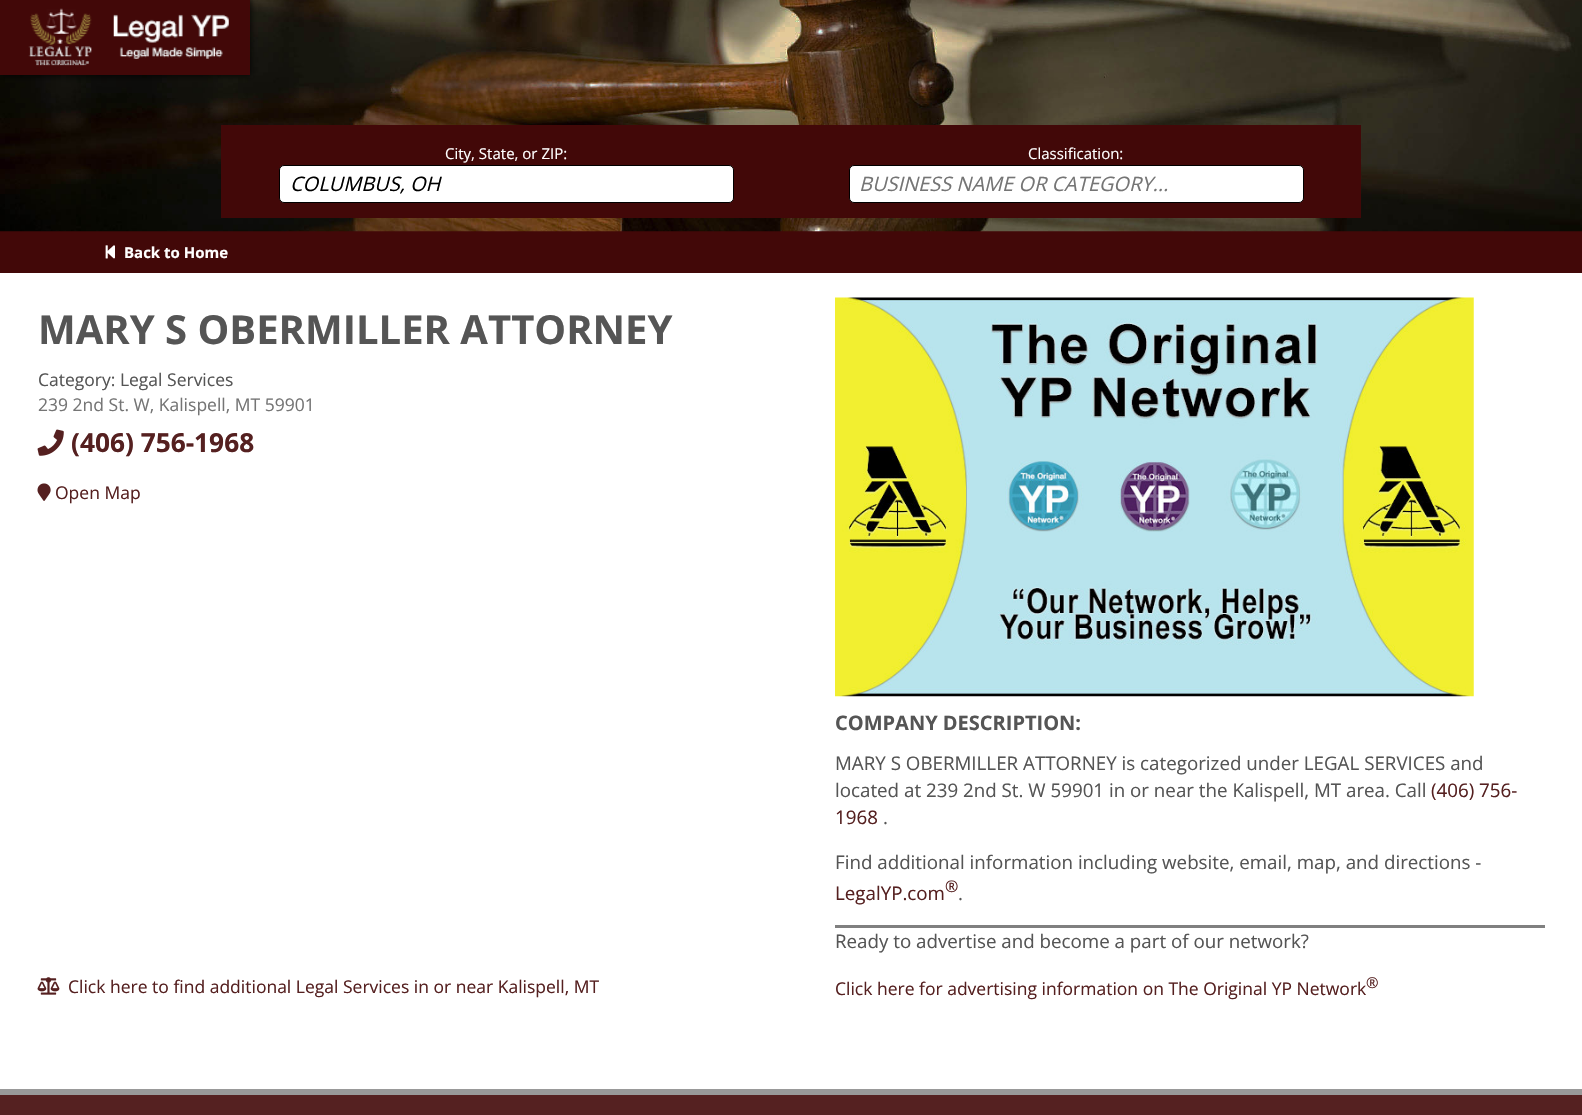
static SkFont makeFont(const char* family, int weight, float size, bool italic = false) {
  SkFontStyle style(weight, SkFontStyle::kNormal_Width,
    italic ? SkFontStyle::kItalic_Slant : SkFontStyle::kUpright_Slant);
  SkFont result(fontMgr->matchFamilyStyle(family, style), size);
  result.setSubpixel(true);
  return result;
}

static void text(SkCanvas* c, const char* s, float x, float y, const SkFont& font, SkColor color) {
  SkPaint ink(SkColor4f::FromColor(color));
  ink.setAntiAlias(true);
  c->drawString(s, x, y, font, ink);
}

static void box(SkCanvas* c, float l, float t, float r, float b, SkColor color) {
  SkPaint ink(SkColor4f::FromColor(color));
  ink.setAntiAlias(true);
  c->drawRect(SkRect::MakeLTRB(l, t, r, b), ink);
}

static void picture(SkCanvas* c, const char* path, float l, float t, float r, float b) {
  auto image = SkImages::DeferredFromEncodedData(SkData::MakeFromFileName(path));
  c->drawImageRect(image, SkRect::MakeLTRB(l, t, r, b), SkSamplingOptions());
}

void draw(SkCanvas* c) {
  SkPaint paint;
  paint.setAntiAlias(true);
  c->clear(0xffffffff);
  box(c, 0, 231, 1582, 273, 0xff420808);
  picture(c, "img_01.png", 0, 0, 1582, 232);
  paint.setColor(0xbf000000);
  paint.setMaskFilter(SkMaskFilter::MakeBlur(kNormal_SkBlurStyle, 3));
  c->drawRect(SkRect::MakeLTRB(-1, -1, 251, 76), paint);
  paint.setMaskFilter(nullptr);
  box(c, 0, 0, 250, 75, 0xff420808);
  picture(c, "img_02.png", 28, 8, 229, 66);
  box(c, 221, 125, 1361, 218, 0xff420808);
  SkFont face1 = makeFont("Open Sans", 400, 15);
  text(c, "City, State, or ZIP:", 445, 159, face1, 0xffffffff);
  paint.setColor(0xffffffff);
  c->drawRoundRect(SkRect::MakeLTRB(279.5f, 165.5f, 733.5f, 202.5f), 4.5f, 4.5f, paint);
  paint.setStyle(SkPaint::kStroke_Style);
  paint.setStrokeWidth(1);
  paint.setColor(0xff000000);
  c->drawRoundRect(SkRect::MakeLTRB(279.5f, 165.5f, 733.5f, 202.5f), 4.5f, 4.5f, paint);
  SkFont face2 = makeFont("Open Sans", 400, 20, true);
  text(c, "COLUMBUS, OH", 290, 191, face2, 0xff000000);
  text(c, "Classification:", 1028, 159, face1, 0xffffffff);
  paint.setStyle(SkPaint::kFill_Style);
  paint.setColor(0xffffffff);
  c->drawRoundRect(SkRect::MakeLTRB(849.5f, 165.5f, 1303.5f, 202.5f), 4.5f, 4.5f, paint);
  paint.setStyle(SkPaint::kStroke_Style);
  paint.setColor(0xff000000);
  c->drawRoundRect(SkRect::MakeLTRB(849.5f, 165.5f, 1303.5f, 202.5f), 4.5f, 4.5f, paint);
  text(c, "BUSINESS NAME OR CATEGORY...", 859, 191, face2, 0xff757575);
  picture(c, "img_03.png", 105, 245, 115, 259);
  SkFont face3 = makeFont("Open Sans", 700, 15);
  text(c, "Back to Home", 124, 258, face3, 0xffffffff);
  SkFont face4 = makeFont("Open Sans", 700, 40);
  text(c, "MARY S OBERMILLER ATTORNEY", 38, 344, face4, 0xff555555);
  SkFont face5 = makeFont("Open Sans", 400, 17.5f);
  text(c, "Category: Legal Services", 38, 386, face5, 0xff555555);
  text(c, "239 2nd St. W, Kalispell, MT 59901", 38, 411, face5, 0xff757575);
  picture(c, "img_04.png", 37, 429, 64, 456);
  SkFont face6 = makeFont("Open Sans", 700, 26.25f);
  text(c, "(406) 756-1968", 71, 452, face6, 0xff552020);
  picture(c, "img_05.png", 37, 483, 51, 501);
  text(c, "Open Map", 55, 499, face5, 0xff552020);
  picture(c, "img_06.png", 37, 977, 60, 995);
  text(c, "Click here to find additional Legal Services in or near Kalispell, MT", 68, 993, face5, 0xff552020);
  picture(c, "img_07.png", 835, 297, 1474, 697);
  SkFont face7 = makeFont("Open Sans", 700, 20);
  text(c, "COMPANY DESCRIPTION:", 835, 730, face7, 0xff555555);
  SkFont face8 = makeFont("Open Sans", 400, 18.75f);
  text(c, "MARY S OBERMILLER ATTORNEY is categorized under LEGAL SERVICES and", 835, 770, face8, 0xff555555);
  text(c, "located at 239 2nd St. W 59901 in or near the Kalispell, MT area. Call", 835, 797, face8, 0xff555555);
  text(c, "(406) 756-", 1431, 797, face8, 0xff552020);
  text(c, "1968", 835, 824, face8, 0xff552020);
  text(c, ".", 883, 824, face8, 0xff555555);
  text(c, "Find additional information including website, email, map, and directions -", 835, 869, face8, 0xff555555);
  text(c, "LegalYP.com", 835, 900, face8, 0xff552020);
  SkFont face9 = makeFont("Open Sans", 400, 16);
  text(c, "®", 945, 892, face9, 0xff552020);
  text(c, ".", 958, 900, face8, 0xff555555);
  box(c, 835, 925, 1545, 928, 0xff808080);
  text(c, "Ready to advertise and become a part of our network?", 835, 948, face8, 0xff555555);
  text(c, "Click here for advertising information on The Original YP Network", 835, 995, face5, 0xff552020);
  text(c, "®", 1366, 988, face1, 0xff552020);
  box(c, 0, 1095, 1582, 1115, 0xff552121);
  box(c, 0, 1089, 1582, 1095, 0xff999999);
}
